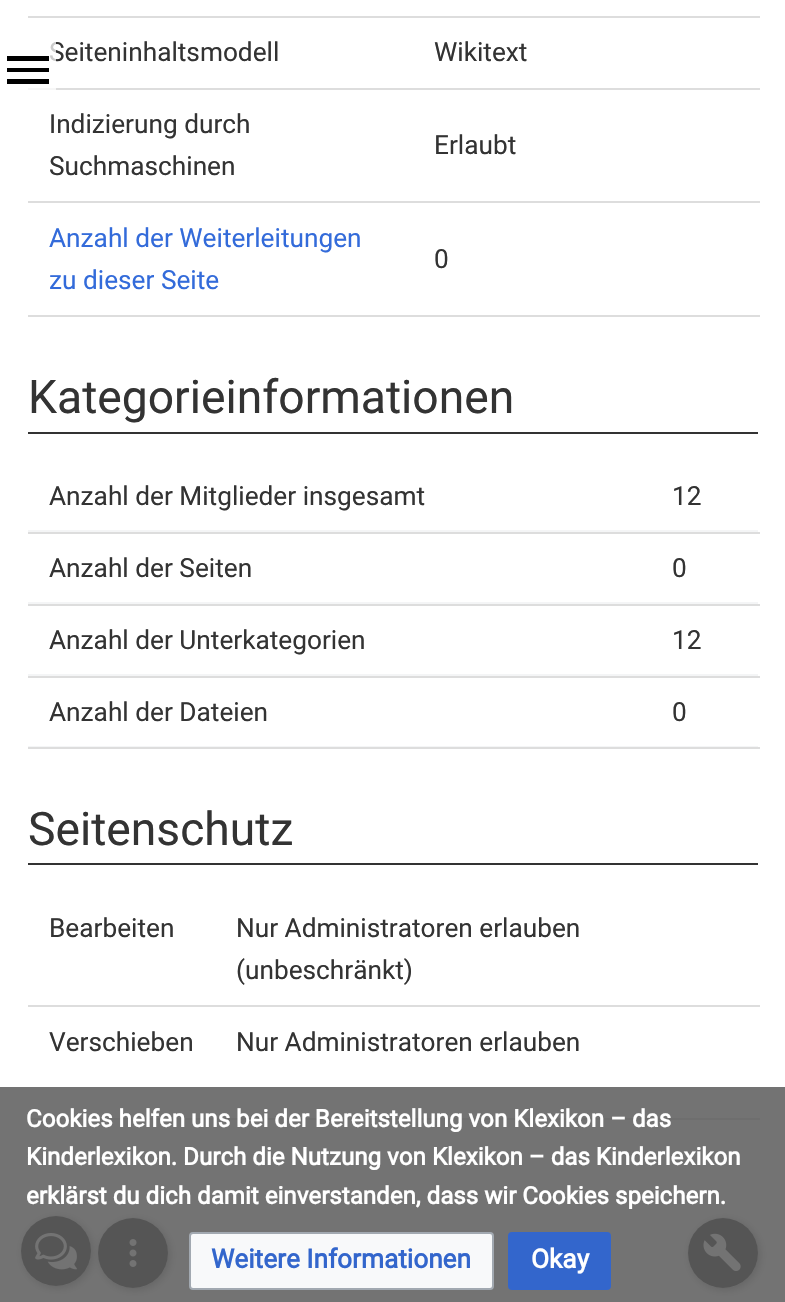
static SkFont makeFont(const char* family, int weight, float size, bool italic = false) {
  SkFontStyle style(weight, SkFontStyle::kNormal_Width,
    italic ? SkFontStyle::kItalic_Slant : SkFontStyle::kUpright_Slant);
  SkFont result(fontMgr->matchFamilyStyle(family, style), size);
  result.setSubpixel(true);
  return result;
}

static void text(SkCanvas* c, const char* s, float x, float y, const SkFont& font, SkColor color) {
  SkPaint ink(SkColor4f::FromColor(color));
  ink.setAntiAlias(true);
  c->drawString(s, x, y, font, ink);
}

static void box(SkCanvas* c, float l, float t, float r, float b, SkColor color) {
  SkPaint ink(SkColor4f::FromColor(color));
  ink.setAntiAlias(true);
  c->drawRect(SkRect::MakeLTRB(l, t, r, b), ink);
}

static void picture(SkCanvas* c, const char* path, float l, float t, float r, float b) {
  auto image = SkImages::DeferredFromEncodedData(SkData::MakeFromFileName(path));
  c->drawImageRect(image, SkRect::MakeLTRB(l, t, r, b), SkSamplingOptions());
}

void draw(SkCanvas* c) {
  SkPaint paint;
  paint.setAntiAlias(true);
  c->clear(0xffffffff);
  box(c, 28, 16, 760, 18, 0xffdddddd);
  SkFont face1 = makeFont("Roboto", 400, 26.25f);
  text(c, "Seiteninhaltsmodell", 49, 61, face1, 0xff333333);
  box(c, 28, 88, 760, 90, 0xffdddddd);
  text(c, "Wikitext", 434, 61, face1, 0xff333333);
  text(c, "Indizierung durch", 49, 133, face1, 0xff333333);
  text(c, "Suchmaschinen", 49, 175, face1, 0xff333333);
  box(c, 28, 201, 760, 203, 0xffdddddd);
  text(c, "Erlaubt", 434, 154, face1, 0xff333333);
  text(c, "Anzahl der Weiterleitungen", 49, 247, face1, 0xff336bda);
  text(c, "zu dieser Seite", 49, 289, face1, 0xff336bda);
  box(c, 28, 315, 760, 317, 0xffdddddd);
  text(c, "0", 434, 268, face1, 0xff333333);
  box(c, 28, 432, 758, 434, 0xff333333);
  SkFont face2 = makeFont("Roboto", 400, 46.25f);
  text(c, "Kategorieinformationen", 28, 413, face2, 0xff333333);
  box(c, 28, 530, 758, 747, 0xfff4f5f6);
  text(c, "Anzahl der Mitglieder insgesamt", 49, 505, face1, 0xff333333);
  box(c, 28, 532, 760, 534, 0xffdddddd);
  text(c, "12", 672, 505, face1, 0xff333333);
  box(c, 28, 534, 758, 602, 0xffffffff);
  text(c, "Anzahl der Seiten", 49, 577, face1, 0xff333333);
  box(c, 28, 604, 760, 606, 0xffdddddd);
  text(c, "0", 672, 577, face1, 0xff333333);
  box(c, 28, 606, 758, 674, 0xffffffff);
  text(c, "Anzahl der Unterkategorien", 49, 649, face1, 0xff333333);
  box(c, 28, 676, 760, 678, 0xffdddddd);
  text(c, "12", 672, 649, face1, 0xff333333);
  box(c, 28, 678, 758, 746, 0xffffffff);
  text(c, "Anzahl der Dateien", 49, 721, face1, 0xff333333);
  box(c, 28, 747, 760, 749, 0xffdddddd);
  text(c, "0", 672, 721, face1, 0xff333333);
  box(c, 28, 863, 758, 865, 0xff333333);
  text(c, "Seitenschutz", 28, 845, face2, 0xff333333);
  text(c, "Bearbeiten", 49, 937, face1, 0xff333333);
  box(c, 28, 1005, 760, 1007, 0xffdddddd);
  text(c, "Nur Administratoren erlauben", 236, 937, face1, 0xff333333);
  text(c, "(unbeschränkt)", 236, 979, face1, 0xff333333);
  text(c, "Verschieben", 49, 1051, face1, 0xff333333);
  box(c, 28, 1118, 760, 1120, 0xffdddddd);
  text(c, "Nur Administratoren erlauben", 236, 1051, face1, 0xff333333);
  c->save();
  c->clipPath(SkPathBuilder(SkPathFillType::kEvenOdd).moveTo(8, 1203).lineTo(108, 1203).lineTo(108, 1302).lineTo(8, 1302).close().moveTo(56, 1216).cubicTo(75.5f, 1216, 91, 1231.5f, 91, 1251).cubicTo(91, 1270.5f, 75.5f, 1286, 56, 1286).cubicTo(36.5f, 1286, 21, 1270.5f, 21, 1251).cubicTo(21, 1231.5f, 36.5f, 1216, 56, 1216).close().detach(), true);
  paint.setColor(0xff999999);
  paint.setMaskFilter(SkMaskFilter::MakeBlur(kNormal_SkBlurStyle, 4.5f));
  c->drawRoundRect(SkRect::MakeLTRB(23, 1218, 93, 1288), 35, 35, paint);
  paint.setMaskFilter(nullptr);
  c->restore();
  paint.setColor(0xcc000000);
  c->drawCircle(56, 1251, 35, paint);
  picture(c, "img_01.png", 35, 1233, 77, 1270);
  c->save();
  c->clipPath(SkPathBuilder(SkPathFillType::kEvenOdd).moveTo(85, 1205).lineTo(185, 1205).lineTo(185, 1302).lineTo(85, 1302).close().moveTo(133, 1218).cubicTo(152.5f, 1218, 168, 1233.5f, 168, 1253).cubicTo(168, 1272.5f, 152.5f, 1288, 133, 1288).cubicTo(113.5f, 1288, 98, 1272.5f, 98, 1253).cubicTo(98, 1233.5f, 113.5f, 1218, 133, 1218).close().detach(), true);
  paint.setColor(0xff999999);
  paint.setMaskFilter(SkMaskFilter::MakeBlur(kNormal_SkBlurStyle, 4.5f));
  c->drawRoundRect(SkRect::MakeLTRB(100, 1220, 170, 1290), 35, 35, paint);
  paint.setMaskFilter(nullptr);
  c->restore();
  paint.setColor(0xcc000000);
  c->drawCircle(133, 1253, 35, paint);
  picture(c, "img_02.png", 129, 1239, 137, 1267);
  c->save();
  c->clipPath(SkPathBuilder(SkPathFillType::kEvenOdd).moveTo(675, 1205).lineTo(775, 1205).lineTo(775, 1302).lineTo(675, 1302).close().moveTo(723, 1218).cubicTo(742.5f, 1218, 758, 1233.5f, 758, 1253).cubicTo(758, 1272.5f, 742.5f, 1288, 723, 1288).cubicTo(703.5f, 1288, 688, 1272.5f, 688, 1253).cubicTo(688, 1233.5f, 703.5f, 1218, 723, 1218).close().detach(), true);
  paint.setColor(0xff999999);
  paint.setMaskFilter(SkMaskFilter::MakeBlur(kNormal_SkBlurStyle, 4.5f));
  c->drawRoundRect(SkRect::MakeLTRB(690, 1220, 760, 1290), 35, 35, paint);
  paint.setMaskFilter(nullptr);
  c->restore();
  paint.setColor(0xcc000000);
  c->drawCircle(723, 1253, 35, paint);
  picture(c, "img_03.png", 703, 1233, 741, 1271);
  box(c, 0, 1087, 785, 1302, 0xd95a5a5a);
  SkFont face3 = makeFont("Roboto", 700, 24.15f);
  text(c, "Cookies helfen uns bei der Bereitstellung von Klexikon – das", 26, 1127, face3, 0xffffffff);
  text(c, "Kinderlexikon. Durch die Nutzung von Klexikon – das Kinderlexikon", 26, 1165, face3, 0xffffffff);
  text(c, "erklärst du dich damit einverstanden, dass wir Cookies speichern.", 26, 1204, face3, 0xffffffff);
  paint.setColor(0xfff8f9fa);
  c->drawRoundRect(SkRect::MakeLTRB(190, 1233, 493, 1289), 3, 3, paint);
  paint.setStyle(SkPaint::kStroke_Style);
  paint.setStrokeWidth(2);
  paint.setColor(0xffa2a9b1);
  c->drawRoundRect(SkRect::MakeLTRB(190, 1233, 493, 1289), 3, 3, paint);
  SkFont face4 = makeFont("Roboto", 700, 26.25f);
  text(c, "Weitere Informationen", 211, 1268, face4, 0xff3366cc);
  paint.setStyle(SkPaint::kFill_Style);
  paint.setColor(0xff3366cc);
  c->drawRoundRect(SkRect::MakeLTRB(509, 1233, 610, 1289), 3, 3, paint);
  paint.setStyle(SkPaint::kStroke_Style);
  c->drawRoundRect(SkRect::MakeLTRB(509, 1233, 610, 1289), 3, 3, paint);
  text(c, "Okay", 531, 1268, face4, 0xffffffff);
  box(c, 28, 42, 56, 90, 0xbfffffff);
  paint.setStyle(SkPaint::kFill_Style);
  paint.setColor(0xff000000);
  c->drawPath(SkPathBuilder().moveTo(7, 84).lineTo(49, 84).lineTo(49, 79).lineTo(7, 79).close().moveTo(7, 72).lineTo(49, 72).lineTo(49, 68).lineTo(7, 68).close().moveTo(7, 56).lineTo(7, 61).lineTo(49, 61).lineTo(49, 56).close().detach(), paint);
}
